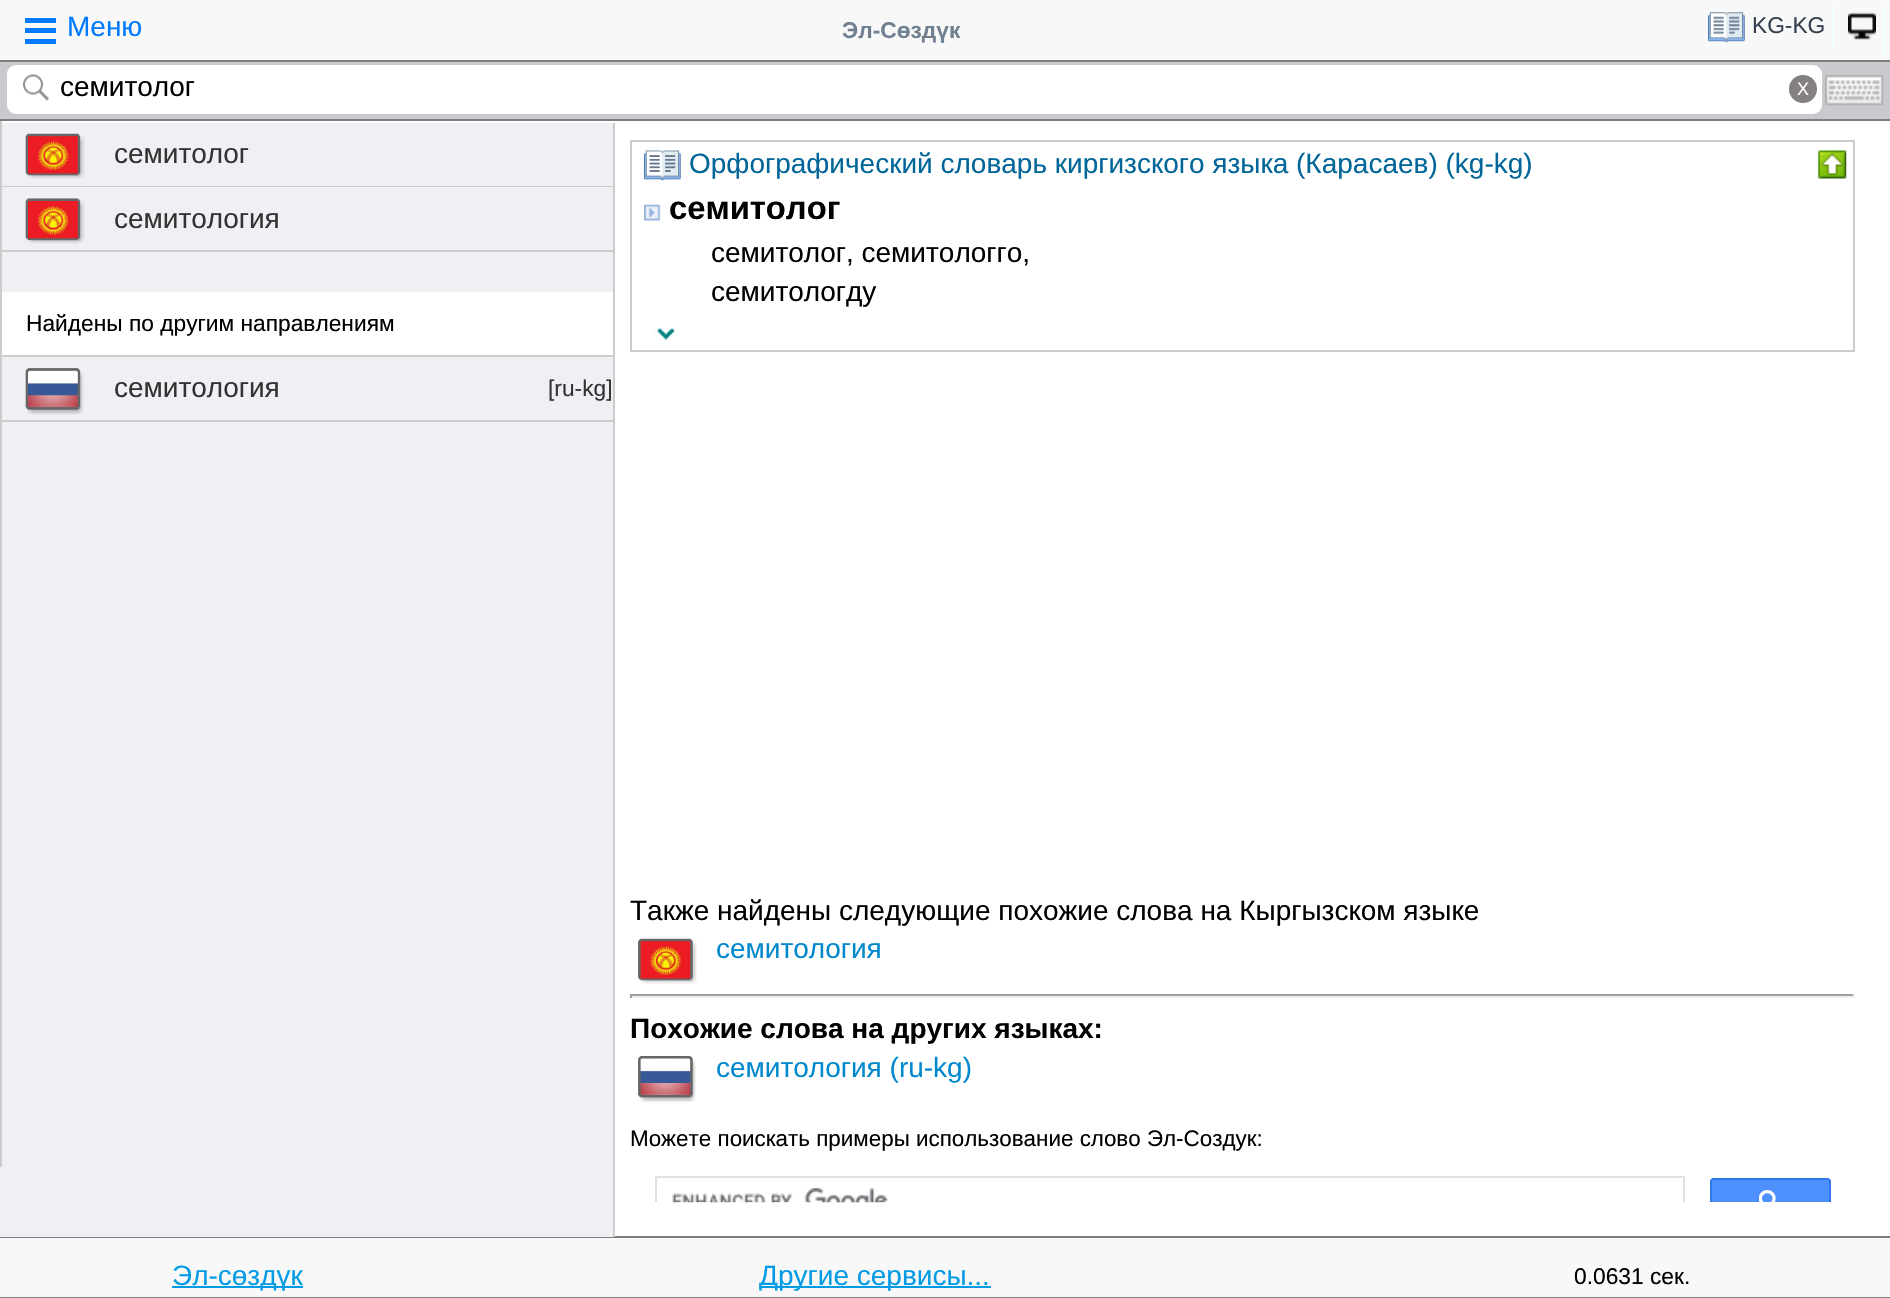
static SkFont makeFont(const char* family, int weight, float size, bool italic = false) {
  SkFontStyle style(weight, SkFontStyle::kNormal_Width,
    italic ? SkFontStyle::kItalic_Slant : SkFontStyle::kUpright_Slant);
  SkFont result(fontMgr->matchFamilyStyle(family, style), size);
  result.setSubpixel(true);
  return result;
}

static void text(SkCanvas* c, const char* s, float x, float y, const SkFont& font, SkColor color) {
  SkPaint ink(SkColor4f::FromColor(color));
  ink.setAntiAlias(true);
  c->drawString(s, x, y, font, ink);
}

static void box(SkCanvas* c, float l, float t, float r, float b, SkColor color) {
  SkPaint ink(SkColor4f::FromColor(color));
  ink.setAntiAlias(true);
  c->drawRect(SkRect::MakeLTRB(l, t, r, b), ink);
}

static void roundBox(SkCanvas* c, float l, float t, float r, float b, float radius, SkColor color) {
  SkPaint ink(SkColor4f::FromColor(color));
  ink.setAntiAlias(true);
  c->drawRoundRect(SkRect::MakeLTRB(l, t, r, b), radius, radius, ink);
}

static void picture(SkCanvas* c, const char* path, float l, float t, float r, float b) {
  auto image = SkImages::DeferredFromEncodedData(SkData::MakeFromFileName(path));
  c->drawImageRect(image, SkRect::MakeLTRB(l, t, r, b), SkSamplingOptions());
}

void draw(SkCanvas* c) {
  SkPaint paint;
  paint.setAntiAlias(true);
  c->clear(0xffffffff);
  box(c, 0, 0, 1890, 60, 0xfff8f8f8);
  box(c, 0, 60, 1890, 62, 0xff7e7e7e);
  box(c, 25, 18, 56, 23, 0xff007bff);
  box(c, 25, 28, 56, 33, 0xff007bff);
  box(c, 25, 39, 56, 44, 0xff007bff);
  SkFont face1 = makeFont("Liberation Sans", 400, 28);
  text(c, "Меню", 67, 36, face1, 0xff007bff);
  SkFont face2 = makeFont("Liberation Sans", 700, 22.75f);
  text(c, "Эл-Сөздүк", 842, 38, face2, 0xff708090);
  box(c, 1832, 5, 1834, 49, 0xfff0ffff);
  picture(c, "img_01.png", 1708, 12, 1745, 43);
  SkFont face3 = makeFont("Liberation Sans", 400, 22.75f);
  text(c, "KG-KG", 1752, 33, face3, 0xff33404d);
  box(c, 1883, 5, 1885, 54, 0xfff0ffff);
  picture(c, "img_02.png", 1848, 12, 1876, 40);
  box(c, 0, 62, 1890, 119, 0xffc9c9ce);
  box(c, 0, 119, 1890, 121, 0xff7e7e7e);
  roundBox(c, 7, 65, 1822, 114, 9, 0xffffffff);
  picture(c, "img_03.png", 23, 74, 49, 101);
  text(c, "семитолог", 60, 96, face1, 0xff000000);
  paint.setColor(0xff848080);
  c->drawCircle(1803, 89, 14, paint);
  SkFont face4 = makeFont("Liberation Sans", 400, 18);
  text(c, "X", 1797, 95, face4, 0xffffffff);
  picture(c, "img_04.png", 1825, 75, 1884, 106);
  box(c, 0, 1236, 1890, 1238, 0xff7e7e7e);
  box(c, 0, 123, 613, 1237, 0xffefeff4);
  box(c, 0, 186, 613, 187, 0xffcccccc);
  box(c, 0, 250, 613, 252, 0xffcccccc);
  box(c, 0, 355, 613, 357, 0xffcccccc);
  box(c, 0, 420, 613, 422, 0xffcccccc);
  box(c, 0, 121, 2, 1167, 0xffcccccc);
  box(c, 613, 123, 615, 1237, 0xffcccccc);
  picture(c, "img_05.png", 25, 133, 85, 179);
  text(c, "семитолог", 114, 163, face1, 0xff333333);
  picture(c, "img_06.png", 25, 198, 85, 244);
  text(c, "семитология", 114, 228, face1, 0xff333333);
  box(c, 2, 292, 613, 355, 0xffffffff);
  text(c, "Найдены по другим направлениям", 26, 331, face3, 0xff000000);
  picture(c, "img_07.png", 25, 368, 84, 415);
  text(c, "семитология", 114, 397, face1, 0xff333333);
  text(c, "[ru-kg]", 548, 396, face3, 0xff333333);
  paint.setStyle(SkPaint::kStroke_Style);
  paint.setStrokeWidth(2);
  paint.setColor(0xffcccccc);
  c->drawRect(SkRect::MakeLTRB(631, 141, 1854, 351), paint);
  picture(c, "img_08.png", 644, 150, 681, 181);
  text(c, "Орфографический словарь киргизского языка (Карасаев) (kg-kg)", 689, 173, face1, 0xff006699);
  picture(c, "img_09.png", 1818, 150, 1847, 179);
  picture(c, "img_10.png", 644, 204, 661, 221);
  SkFont face5 = makeFont("Liberation Sans", 700, 32.75f);
  text(c, "семитолог", 669, 219, face5, 0xff000000);
  text(c, "семитолог, семитологго,", 711, 262, face1, 0xff000000);
  text(c, "семитологду", 711, 301, face1, 0xff000000);
  picture(c, "img_11.png", 653, 328, 675, 340);
  text(c, "Также найдены следующие похожие слова на Кыргызском языке", 630, 920, face1, 0xff000000);
  picture(c, "img_12.png", 638, 938, 697, 984);
  text(c, "семитология", 716, 958, face1, 0xff0088cc);
  box(c, 630, 994, 1855, 996, 0xff9f9f9f);
  box(c, 1853, 994, 1855, 998, 0xffeeeeee);
  box(c, 630, 996, 1855, 998, 0xffeeeeee);
  box(c, 630, 994, 632, 998, 0xff9f9f9f);
  SkFont face6 = makeFont("Liberation Sans", 700, 28);
  text(c, "Похожие слова на других языках:", 630, 1038, face6, 0xff000000);
  picture(c, "img_13.png", 638, 1056, 696, 1103);
  text(c, "семитология (ru-kg)", 716, 1077, face1, 0xff0088cc);
  SkFont face7 = makeFont("Liberation Sans", 400, 22.4f);
  text(c, "Можете поискать примеры использование слово Эл-Создук:", 630, 1146, face7, 0xff000000);
  c->save();
  c->clipRect(SkRect::MakeLTRB(613, 123, 1873, 1202));
  paint.setColor(0xffdfe1e5);
  c->drawRect(SkRect::MakeLTRB(656, 1177, 1684, 1228), paint);
  c->restore();
  picture(c, "img_14.png", 672, 1188, 888, 1203);
  paint.setStyle(SkPaint::kFill_Style);
  paint.setColor(0xff4d90fe);
  c->drawPath(SkPathBuilder().moveTo(1714, 1178).lineTo(1827, 1178).cubicTo(1829, 1178, 1831, 1180, 1831, 1182).lineTo(1831, 1202).lineTo(1710, 1202).lineTo(1710, 1182).cubicTo(1710, 1180, 1712, 1178, 1714, 1178).close().detach(), paint);
  c->save();
  c->clipRect(SkRect::MakeLTRB(613, 123, 1873, 1202));
  paint.setStyle(SkPaint::kStroke_Style);
  paint.setColor(0xff3079ed);
  c->drawRoundRect(SkRect::MakeLTRB(1711, 1179, 1830, 1224), 3, 3, paint);
  c->restore();
  picture(c, "img_15.png", 1759, 1190, 1776, 1202);
  box(c, 0, 1238, 1890, 1297, 0xfff8f8f8);
  box(c, 0, 1297, 1890, 1298, 0xff7e7e7e);
  box(c, 172, 1286, 303, 1288, 0xff039be5);
  text(c, "Эл-сөздүк", 172, 1285, face1, 0xff039be5);
  box(c, 760, 1286, 991, 1288, 0xff039be5);
  text(c, "Другие сервисы...", 759, 1285, face1, 0xff039be5);
  text(c, "0.0631 сек.", 1574, 1284, face3, 0xff000000);
}
